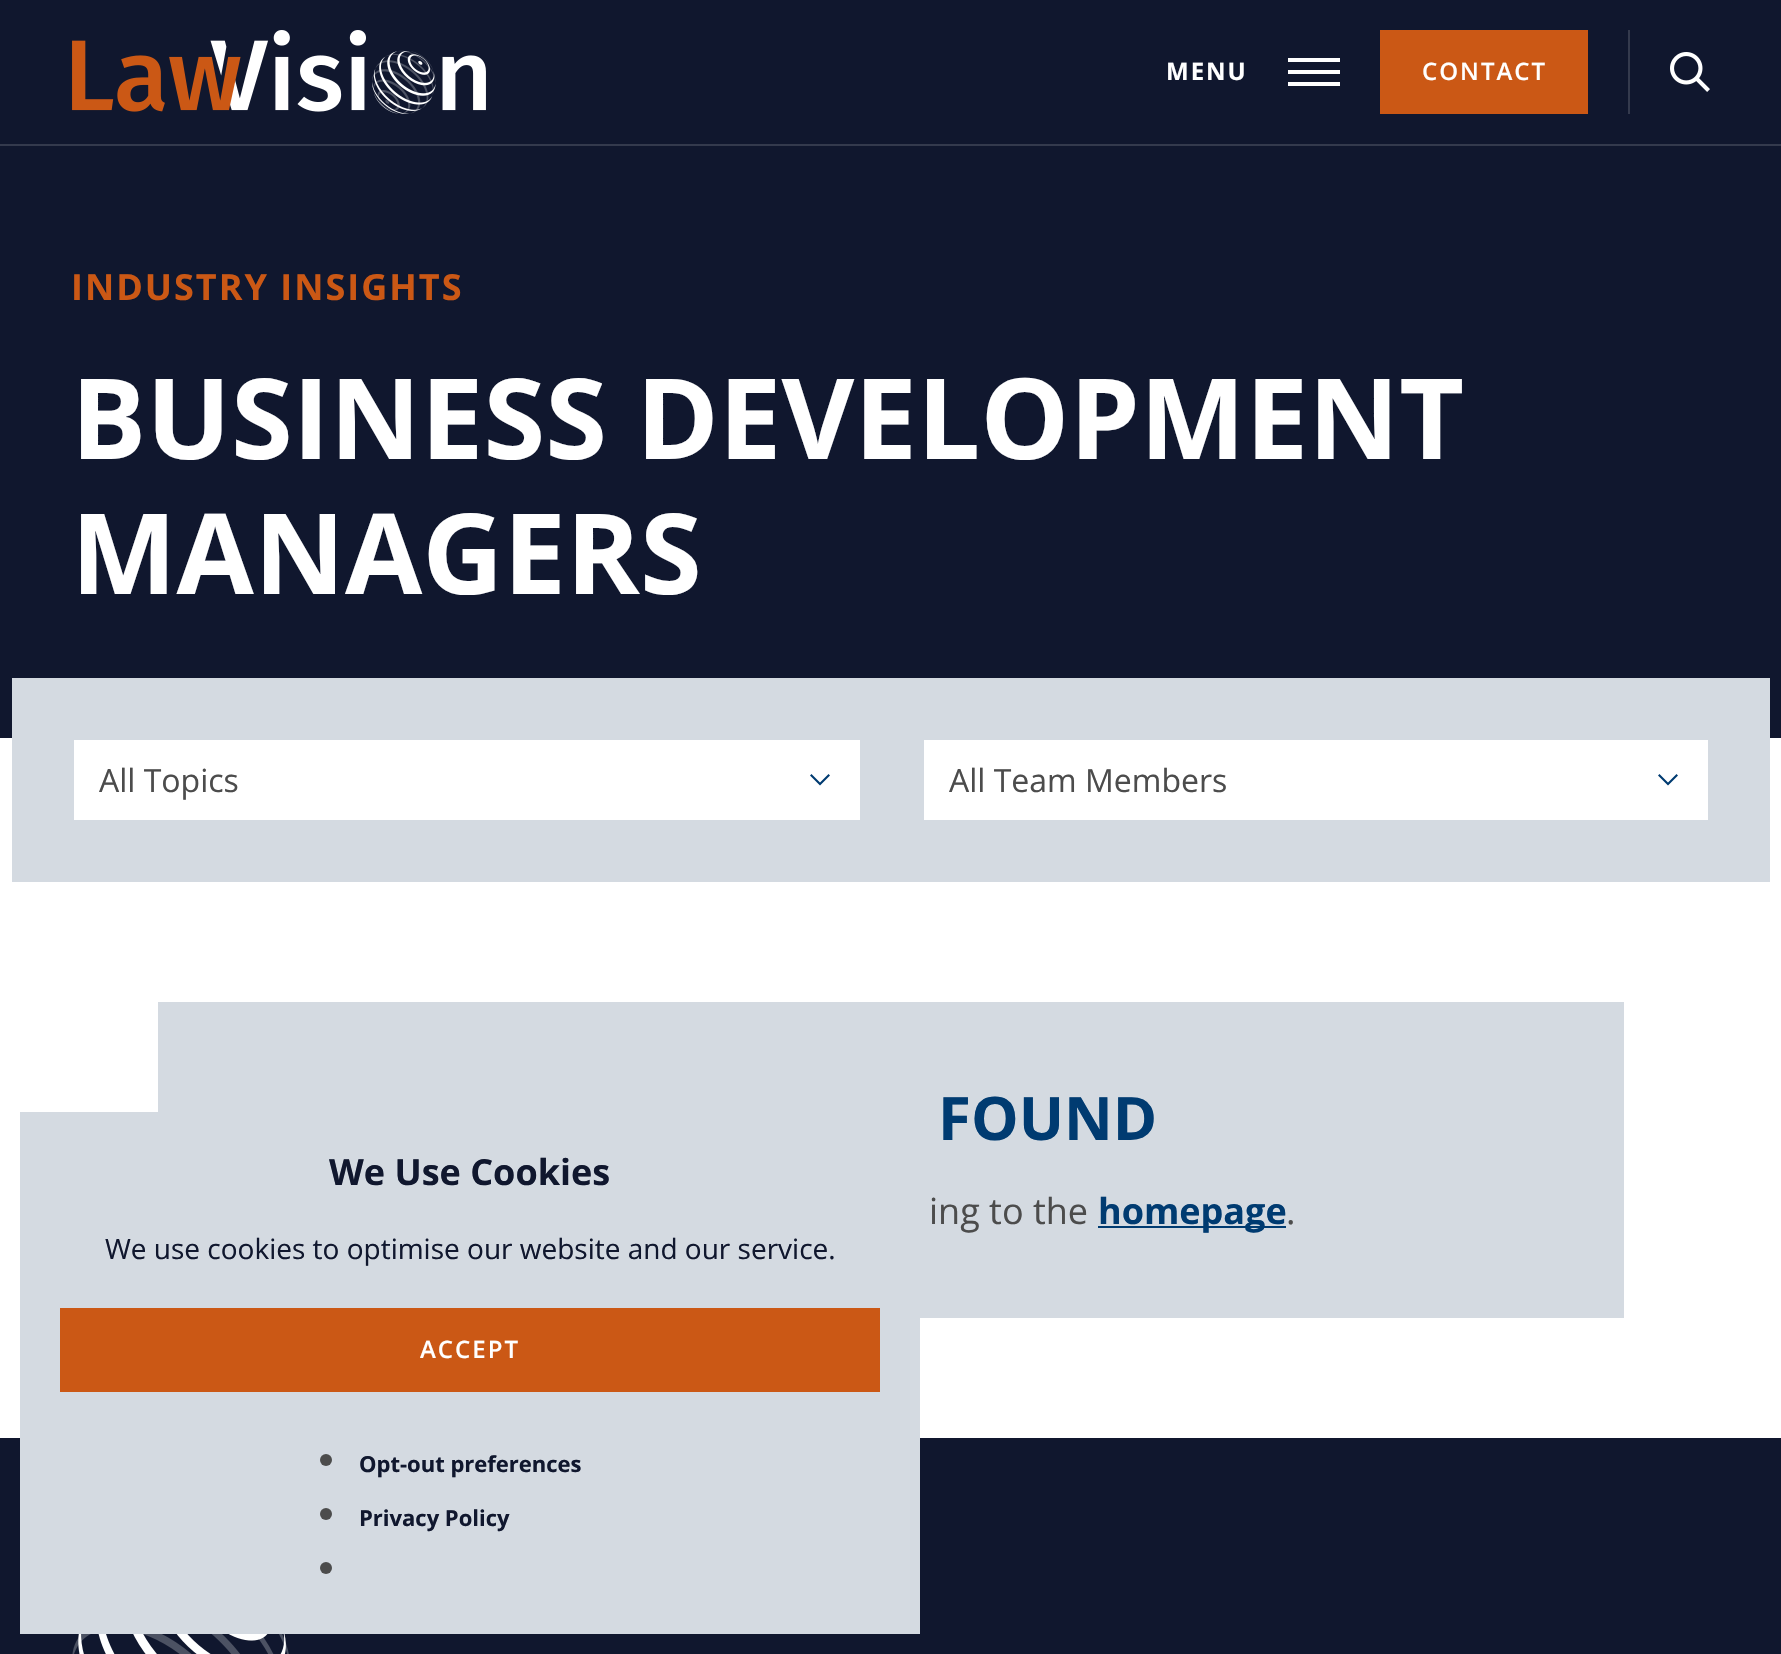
static SkFont makeFont(const char* family, int weight, float size, bool italic = false) {
  SkFontStyle style(weight, SkFontStyle::kNormal_Width,
    italic ? SkFontStyle::kItalic_Slant : SkFontStyle::kUpright_Slant);
  SkFont result(fontMgr->matchFamilyStyle(family, style), size);
  result.setSubpixel(true);
  return result;
}

static void text(SkCanvas* c, const char* s, float x, float y, const SkFont& font, SkColor color) {
  SkPaint ink(SkColor4f::FromColor(color));
  ink.setAntiAlias(true);
  c->drawString(s, x, y, font, ink);
}

static void spacedText(SkCanvas* c, const char* s, float x, float y, const SkFont& font, const SkPaint& ink, float letter, float word) {
  std::vector<SkGlyphID> glyphs(font.countText(s, strlen(s), SkTextEncoding::kUTF8));
  std::vector<float> xs(glyphs.size());
  font.textToGlyphs(s, strlen(s), SkTextEncoding::kUTF8, glyphs);
  font.getXPos(glyphs, xs, x);
  float extra = 0;
  for (size_t i = 0; i < glyphs.size(); i++) {
    xs[i] += extra;
    extra += letter + word * (glyphs[i] == font.unicharToGlyph(' '));
  }
  c->drawTextBlob(SkTextBlob::MakeFromPosHGlyphs(glyphs, xs, y, font), 0, 0, ink);
}

static void box(SkCanvas* c, float l, float t, float r, float b, SkColor color) {
  SkPaint ink(SkColor4f::FromColor(color));
  ink.setAntiAlias(true);
  c->drawRect(SkRect::MakeLTRB(l, t, r, b), ink);
}

static void picture(SkCanvas* c, const char* path, float l, float t, float r, float b) {
  auto image = SkImages::DeferredFromEncodedData(SkData::MakeFromFileName(path));
  c->drawImageRect(image, SkRect::MakeLTRB(l, t, r, b), SkSamplingOptions());
}

void draw(SkCanvas* c) {
  SkPaint paint;
  paint.setAntiAlias(true);
  c->clear(0xffffffff);
  box(c, 0, 0, 1781, 738, 0xff10172e);
  box(c, 0, 144, 1781, 146, 0xff343a4d);
  picture(c, "img_01.png", 72, 30, 486, 114);
  SkFont face1 = makeFont("Open Sans", 700, 24);
  paint.setColor(0xffffffff);
  spacedText(c, "MENU", 1166, 80, face1, paint, 2, 0);
  box(c, 1288, 58, 1340, 62, 0xffffffff);
  box(c, 1288, 70, 1340, 74, 0xffffffff);
  box(c, 1288, 82, 1340, 86, 0xffffffff);
  box(c, 1380, 30, 1588, 114, 0xffcb5815);
  SkFont face2 = makeFont("Open Sans", 600, 24);
  spacedText(c, "CONTACT", 1422, 80, face2, paint, 2, 0);
  box(c, 1628, 30, 1630, 114, 0xff343a4d);
  picture(c, "img_02.png", 1670, 52, 1710, 92);
  SkFont face3 = makeFont("Open Sans", 700, 36);
  paint.setColor(0xffcb5815);
  spacedText(c, "INDUSTRY INSIGHTS", 71, 300, face3, paint, 2, 0);
  SkFont face4 = makeFont("Open Sans", 700, 112);
  text(c, "BUSINESS DEVELOPMENT", 71, 459, face4, 0xffffffff);
  text(c, "MANAGERS", 71, 594, face4, 0xffffffff);
  box(c, 12, 678, 1770, 882, 0xffd4dae1);
  box(c, 74, 740, 860, 820, 0xffffffff);
  SkFont face5 = makeFont("Open Sans", 400, 32);
  text(c, "All Topics", 99, 792, face5, 0xff4c4c4c);
  paint.setColor(0xff003b71);
  c->drawPath(SkPathBuilder().moveTo(820, 785.5f).lineTo(810, 775.5f).lineTo(811.5f, 774).lineTo(820, 782.5f).lineTo(828.5f, 774).lineTo(830, 775.5f).close().detach(), paint);
  box(c, 924, 740, 1708, 820, 0xffffffff);
  text(c, "All Team Members", 949, 792, face5, 0xff4c4c4c);
  c->drawPath(SkPathBuilder().moveTo(1668, 785.5f).lineTo(1658, 775.5f).lineTo(1659.5f, 774).lineTo(1668, 782.5f).lineTo(1676.5f, 774).lineTo(1678, 775.5f).close().detach(), paint);
  box(c, 158, 1002, 1624, 1318, 0xffd4dae1);
  SkFont face6 = makeFont("Open Sans", 700, 60);
  text(c, "FOUND", 938, 1140, face6, 0xff003b71);
  SkFont face7 = makeFont("Open Sans", 400, 36);
  text(c, "ing to the", 929, 1224, face7, 0xff4c4c4c);
  box(c, 1098, 1226, 1286, 1228, 0xff003b71);
  text(c, "homepage", 1098, 1224, face3, 0xff003b71);
  text(c, ".", 1286, 1224, face7, 0xff4c4c4c);
  box(c, 0, 1438, 1781, 1654, 0xff10172e);
  picture(c, "img_03.png", 72, 1634, 289, 1654);
  box(c, 20, 1112, 920, 1634, 0xffd4dae1);
  text(c, "We Use Cookies", 329, 1185, face3, 0xff10172e);
  SkFont face8 = makeFont("Open Sans", 400, 28);
  text(c, "We use cookies to optimise our website and our service.", 105, 1259, face8, 0xff10172e);
  box(c, 60, 1308, 880, 1392, 0xffcb5815);
  paint.setColor(0xffffffff);
  spacedText(c, "ACCEPT", 420, 1358, face2, paint, 2, 0);
  paint.setColor(0xff4c4c4c);
  c->drawCircle(326, 1460, 6, paint);
  SkFont face9 = makeFont("Open Sans", 700, 22);
  text(c, "Opt-out preferences", 359, 1472, face9, 0xff10172e);
  c->drawCircle(326, 1514, 6, paint);
  text(c, "Privacy Policy", 359, 1526, face9, 0xff10172e);
  c->drawCircle(326, 1568, 6, paint);
}
